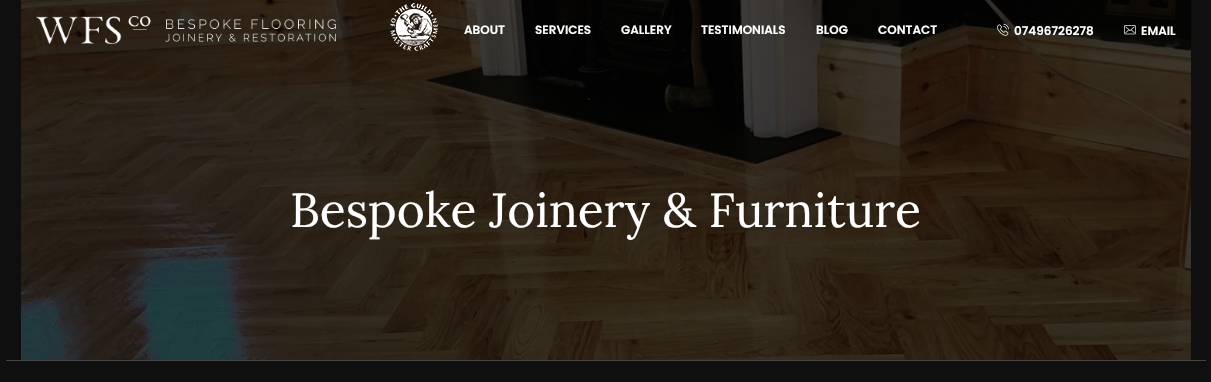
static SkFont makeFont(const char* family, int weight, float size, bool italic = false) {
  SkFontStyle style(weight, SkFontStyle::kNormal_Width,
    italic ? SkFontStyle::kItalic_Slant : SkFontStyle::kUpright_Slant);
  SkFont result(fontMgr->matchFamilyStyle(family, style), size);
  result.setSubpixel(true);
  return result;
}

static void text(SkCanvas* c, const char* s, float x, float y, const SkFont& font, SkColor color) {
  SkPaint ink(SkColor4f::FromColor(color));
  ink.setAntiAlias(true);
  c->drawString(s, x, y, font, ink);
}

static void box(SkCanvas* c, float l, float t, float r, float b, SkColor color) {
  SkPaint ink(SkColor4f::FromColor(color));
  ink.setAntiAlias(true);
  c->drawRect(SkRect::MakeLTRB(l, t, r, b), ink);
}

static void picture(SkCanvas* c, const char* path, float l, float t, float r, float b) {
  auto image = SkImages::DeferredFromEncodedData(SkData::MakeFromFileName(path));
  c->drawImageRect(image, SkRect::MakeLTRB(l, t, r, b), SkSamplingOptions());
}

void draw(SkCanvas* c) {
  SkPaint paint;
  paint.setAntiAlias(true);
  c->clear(0xff0f0f0f);
  picture(c, "img_05.png", 21, 0, 1191, 360);
  picture(c, "img_01.png", 36, 16, 336, 44);
  picture(c, "img_02.png", 390, 3, 438, 51);
  SkFont face1 = makeFont("Poppins", 600, 12);
  text(c, "ABOUT", 464, 34, face1, 0xffffffff);
  text(c, "SERVICES", 535, 34, face1, 0xffffffff);
  text(c, "GALLERY", 621, 34, face1, 0xffffffff);
  text(c, "TESTIMONIALS", 701, 34, face1, 0xffffffff);
  text(c, "BLOG", 816, 34, face1, 0xffffffff);
  text(c, "CONTACT", 878, 34, face1, 0xffffffff);
  picture(c, "img_03.png", 997, 23, 1009, 36);
  text(c, "07496726278", 1014, 35, face1, 0xffffffff);
  picture(c, "img_04.png", 1124, 25, 1136, 35);
  text(c, "EMAIL", 1141, 35, face1, 0xffffffff);
  SkFont face2 = makeFont("Lora", 400, 48);
  text(c, "Bespoke Joinery & Furniture", 290, 227, face2, 0xffffffff);
  box(c, 6, 360, 1206, 361, 0xff444444);
}
